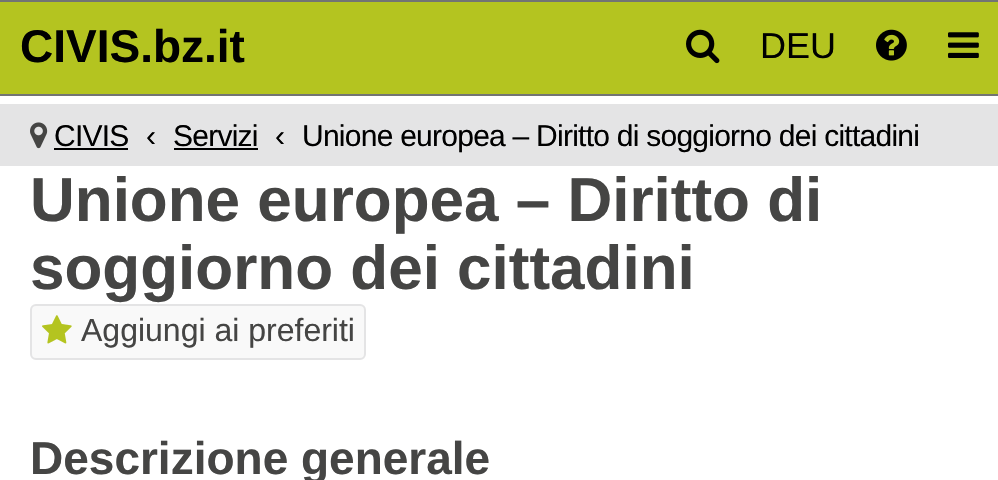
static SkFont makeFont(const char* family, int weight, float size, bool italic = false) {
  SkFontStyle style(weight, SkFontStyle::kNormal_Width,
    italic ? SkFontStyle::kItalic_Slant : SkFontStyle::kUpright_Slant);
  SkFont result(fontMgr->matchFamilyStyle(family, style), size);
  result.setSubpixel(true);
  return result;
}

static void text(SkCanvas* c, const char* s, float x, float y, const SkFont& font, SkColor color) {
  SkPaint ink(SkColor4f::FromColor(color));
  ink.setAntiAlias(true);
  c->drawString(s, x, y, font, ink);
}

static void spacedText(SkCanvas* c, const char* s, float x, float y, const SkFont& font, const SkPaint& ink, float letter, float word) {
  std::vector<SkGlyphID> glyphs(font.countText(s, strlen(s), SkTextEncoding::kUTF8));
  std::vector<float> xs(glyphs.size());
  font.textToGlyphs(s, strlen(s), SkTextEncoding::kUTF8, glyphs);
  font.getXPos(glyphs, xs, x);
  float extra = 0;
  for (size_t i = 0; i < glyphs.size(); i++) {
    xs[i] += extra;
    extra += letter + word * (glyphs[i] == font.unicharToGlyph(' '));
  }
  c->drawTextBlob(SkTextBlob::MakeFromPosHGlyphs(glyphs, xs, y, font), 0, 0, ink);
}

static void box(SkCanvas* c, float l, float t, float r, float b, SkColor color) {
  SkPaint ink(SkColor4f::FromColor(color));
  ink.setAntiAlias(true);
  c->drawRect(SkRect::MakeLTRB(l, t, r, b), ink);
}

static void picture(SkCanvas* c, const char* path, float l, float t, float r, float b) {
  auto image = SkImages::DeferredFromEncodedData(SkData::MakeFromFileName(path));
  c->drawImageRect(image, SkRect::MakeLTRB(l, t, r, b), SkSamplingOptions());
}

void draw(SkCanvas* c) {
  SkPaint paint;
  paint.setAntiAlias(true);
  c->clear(0xffffffff);
  box(c, 0, 0, 998, 2, 0xff727474);
  box(c, 0, 2, 998, 94, 0xffb4c420);
  box(c, 0, 94, 998, 96, 0xff727474);
  SkFont face1 = makeFont("Liberation Sans", 700, 46);
  text(c, "CIVIS.bz.it", 20, 62, face1, 0xff000000);
  picture(c, "img_01.png", 686, 29, 720, 64);
  SkFont face2 = makeFont("Liberation Sans", 400, 36);
  text(c, "DEU", 760, 58, face2, 0xff000000);
  picture(c, "img_02.png", 876, 29, 907, 61);
  picture(c, "img_03.png", 948, 32, 979, 58);
  box(c, 0, 104, 998, 166, 0xffe4e4e5);
  picture(c, "img_04.png", 30, 122, 48, 149);
  SkFont face3 = makeFont("Liberation Sans", 400, 30);
  paint.setColor(0xff000000);
  spacedText(c, "CIVIS", 54, 146, face3, paint, -0.75f, 0);
  box(c, 54, 148, 128, 150, 0xff000000);
  spacedText(c, "‹", 146, 146, face3, paint, -0.75f, 0);
  spacedText(c, "Servizi", 173, 146, face3, paint, -0.75f, 0);
  box(c, 174, 148, 258, 150, 0xff000000);
  spacedText(c, "‹", 275, 146, face3, paint, -0.75f, 0);
  spacedText(c, "Unione europea – Diritto di soggiorno dei cittadini", 302, 146, face3, paint, -0.75f, 0);
  SkFont face4 = makeFont("Liberation Sans", 700, 62);
  text(c, "Unione europea – Diritto di", 30, 221, face4, 0xff454544);
  text(c, "soggiorno dei cittadini", 30, 289, face4, 0xff454544);
  paint.setColor(0xfff9f9f9);
  c->drawRoundRect(SkRect::MakeLTRB(31, 305, 365, 359), 5, 5, paint);
  paint.setStyle(SkPaint::kStroke_Style);
  paint.setStrokeWidth(2);
  paint.setColor(0xffe4e4e5);
  c->drawRoundRect(SkRect::MakeLTRB(31, 305, 365, 359), 5, 5, paint);
  picture(c, "img_05.png", 42, 315, 72, 344);
  SkFont face5 = makeFont("Liberation Sans", 400, 32);
  text(c, "Aggiungi ai preferiti", 81, 341, face5, 0xff454544);
  text(c, "Descrizione generale", 30, 474, face1, 0xff454544);
}
